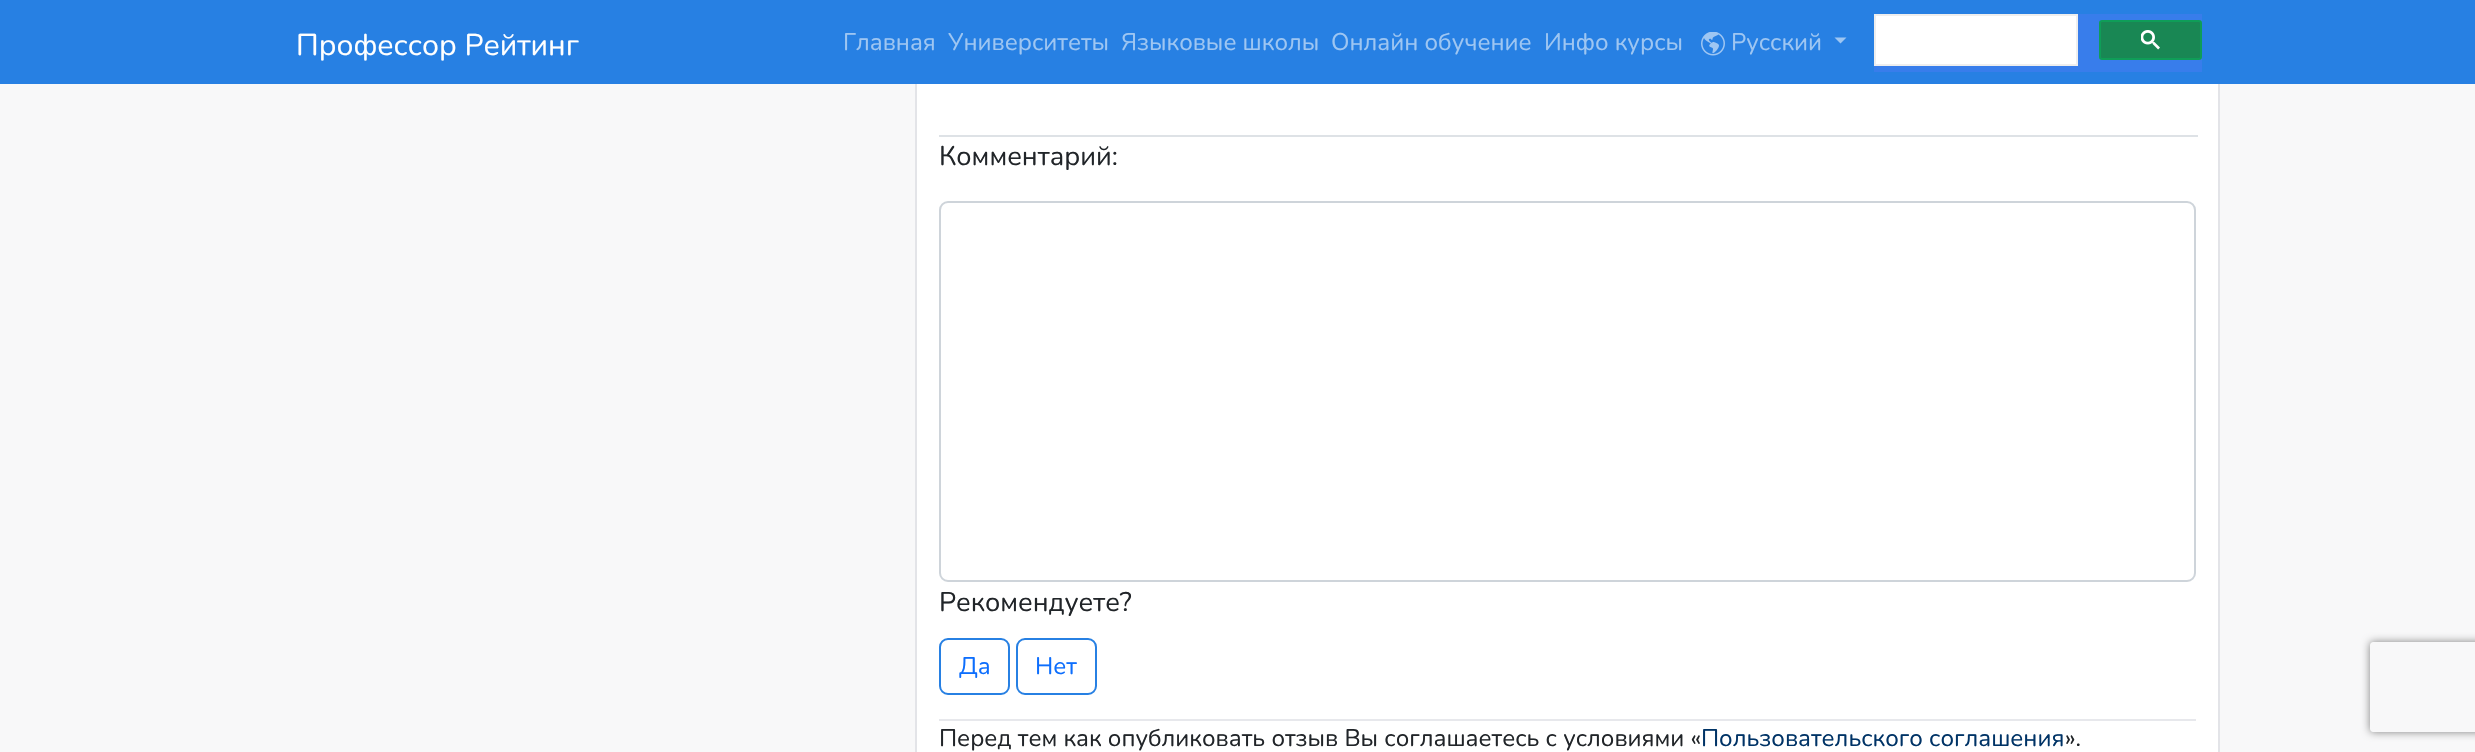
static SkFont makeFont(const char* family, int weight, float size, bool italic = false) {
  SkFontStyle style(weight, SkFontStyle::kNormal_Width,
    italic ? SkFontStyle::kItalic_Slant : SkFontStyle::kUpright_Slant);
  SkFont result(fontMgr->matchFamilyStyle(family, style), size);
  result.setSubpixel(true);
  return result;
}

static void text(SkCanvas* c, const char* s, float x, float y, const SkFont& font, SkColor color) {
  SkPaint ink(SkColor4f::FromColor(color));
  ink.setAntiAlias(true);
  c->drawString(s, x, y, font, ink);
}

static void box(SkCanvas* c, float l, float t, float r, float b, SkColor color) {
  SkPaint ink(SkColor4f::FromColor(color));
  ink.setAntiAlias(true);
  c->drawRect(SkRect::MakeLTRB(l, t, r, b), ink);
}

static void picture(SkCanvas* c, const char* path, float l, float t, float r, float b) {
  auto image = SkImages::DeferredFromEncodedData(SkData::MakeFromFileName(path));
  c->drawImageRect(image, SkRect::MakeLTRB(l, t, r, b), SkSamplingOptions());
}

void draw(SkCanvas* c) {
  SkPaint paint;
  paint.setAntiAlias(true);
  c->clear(0xfff8f8f9);
  box(c, 917, 84, 2218, 752, 0xffffffff);
  paint.setStyle(SkPaint::kStroke_Style);
  paint.setStrokeWidth(2);
  paint.setColor(0xffe3e4e8);
  c->drawRect(SkRect::MakeLTRB(916, -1, 2219, 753), paint);
  box(c, 0, 0, 2475, 84, 0xff2780e3);
  SkFont face1 = makeFont("Nunito", 200, 30);
  text(c, "Профессор Рейтинг", 296, 55, face1, 0xffffffff);
  SkFont face2 = makeFont("Nunito", 200, 24);
  text(c, "Главная", 843, 50, face2, 0xff9ec6f2);
  text(c, "Университеты", 948, 50, face2, 0xff9ec6f2);
  text(c, "Языковые школы", 1121, 50, face2, 0xff9ec6f2);
  text(c, "Онлайн обучение", 1331, 50, face2, 0xff9ec6f2);
  text(c, "Инфо курсы", 1544, 50, face2, 0xff9ec6f2);
  picture(c, "img_01.png", 1701, 32, 1725, 56);
  text(c, "Русский", 1731, 50, face2, 0xff9ec6f2);
  paint.setStyle(SkPaint::kFill_Style);
  paint.setColor(0xff9ec6f2);
  c->drawPath(SkPathBuilder().moveTo(1834.5f, 37.5f).lineTo(1846.5f, 37.5f).lineTo(1840.5f, 43.5f).close().detach(), paint);
  box(c, 1874, 14, 2202, 72, 0xff387deb);
  paint.setColor(0xffffffff);
  c->drawRect(SkRect::MakeLTRB(1875, 15, 2077, 65), paint);
  paint.setStyle(SkPaint::kStroke_Style);
  paint.setColor(0xffeeeeee);
  c->drawRect(SkRect::MakeLTRB(1875, 15, 2077, 65), paint);
  paint.setStyle(SkPaint::kFill_Style);
  paint.setColor(0xff198754);
  c->drawRoundRect(SkRect::MakeLTRB(2100, 21, 2201, 59), 2, 2, paint);
  paint.setStyle(SkPaint::kStroke_Style);
  paint.setColor(0xff0f9d58);
  c->drawRoundRect(SkRect::MakeLTRB(2100, 21, 2201, 59), 2, 2, paint);
  picture(c, "img_02.png", 2141, 30, 2160, 50);
  box(c, 939, 135, 2198, 137, 0xffdee2e6);
  SkFont face3 = makeFont("Nunito", 200, 27);
  text(c, "Комментарий:", 939, 165, face3, 0xff212529);
  paint.setColor(0xffced4da);
  c->drawRoundRect(SkRect::MakeLTRB(940, 202, 2195, 581), 8, 8, paint);
  text(c, "Рекомендуете?", 939, 611, face3, 0xff212529);
  paint.setColor(0xff2780e3);
  c->drawRoundRect(SkRect::MakeLTRB(940, 639, 1009, 694), 8, 8, paint);
  text(c, "Да", 959, 674, face2, 0xff0d6efd);
  c->drawRoundRect(SkRect::MakeLTRB(1017, 639, 1096, 694), 8, 8, paint);
  text(c, "Нет", 1035, 674, face2, 0xff0d6efd);
  box(c, 939, 719, 2196, 721, 0xffe7e8ec);
  text(c, "Перед тем как опубликовать отзыв Вы соглашаетесь с условиями «", 939, 746, face2, 0xff212529);
  text(c, "Пользовательского соглашения", 1701, 746, face2, 0xff003366);
  text(c, "».", 2065, 746, face2, 0xff212529);
  c->save();
  c->clipPath(SkPathBuilder(SkPathFillType::kEvenOdd).moveTo(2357, 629).lineTo(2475, 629).lineTo(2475, 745).lineTo(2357, 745).close().moveTo(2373, 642).lineTo(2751, 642).cubicTo(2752.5f, 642, 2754, 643.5f, 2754, 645).lineTo(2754, 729).cubicTo(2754, 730.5f, 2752.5f, 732, 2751, 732).lineTo(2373, 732).cubicTo(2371.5f, 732, 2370, 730.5f, 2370, 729).lineTo(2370, 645).cubicTo(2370, 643.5f, 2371.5f, 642, 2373, 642).close().detach(), true);
  paint.setStyle(SkPaint::kFill_Style);
  paint.setColor(0xff808080);
  paint.setMaskFilter(SkMaskFilter::MakeBlur(kNormal_SkBlurStyle, 4));
  c->drawRoundRect(SkRect::MakeLTRB(2370, 642, 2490, 732), 3, 3, paint);
  paint.setMaskFilter(nullptr);
  c->restore();
}
